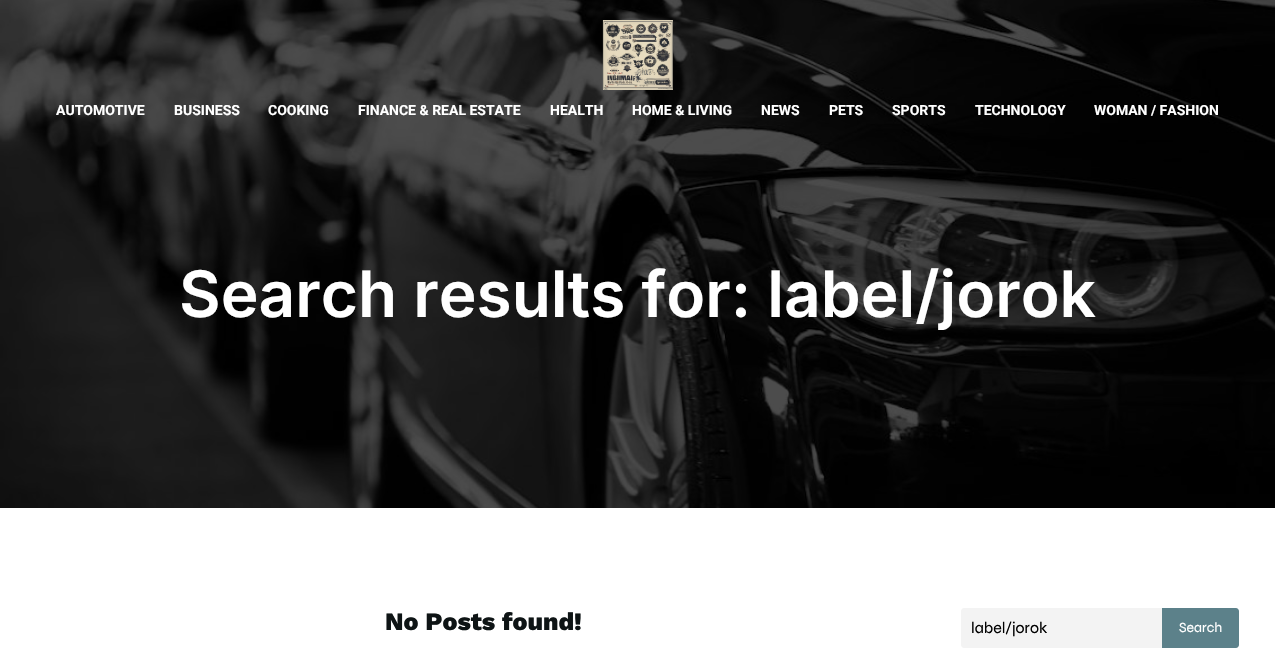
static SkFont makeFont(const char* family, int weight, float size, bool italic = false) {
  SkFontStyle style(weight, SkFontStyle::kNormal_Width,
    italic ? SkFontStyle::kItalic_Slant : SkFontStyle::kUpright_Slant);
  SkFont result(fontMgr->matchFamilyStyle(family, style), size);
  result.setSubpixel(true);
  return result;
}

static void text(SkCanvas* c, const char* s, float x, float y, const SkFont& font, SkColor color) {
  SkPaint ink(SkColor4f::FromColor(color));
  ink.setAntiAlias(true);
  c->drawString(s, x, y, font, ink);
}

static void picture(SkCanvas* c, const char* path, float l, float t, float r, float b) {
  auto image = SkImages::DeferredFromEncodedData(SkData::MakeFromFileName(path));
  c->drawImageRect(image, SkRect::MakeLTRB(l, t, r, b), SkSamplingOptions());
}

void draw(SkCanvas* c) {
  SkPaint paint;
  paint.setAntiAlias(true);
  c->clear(0xffffffff);
  picture(c, "img_02.png", 0, 0, 1275, 508);
  picture(c, "img_01.png", 602, 20, 673, 90);
  SkFont face1 = makeFont("Roboto", 700, 14);
  text(c, "AUTOMOTIVE", 56, 115, face1, 0xffffffff);
  text(c, "BUSINESS", 174, 115, face1, 0xffffffff);
  text(c, "COOKING", 268, 115, face1, 0xffffffff);
  text(c, "FINANCE & REAL ESTATE", 358, 115, face1, 0xffffffff);
  text(c, "HEALTH", 550, 115, face1, 0xffffffff);
  text(c, "HOME & LIVING", 632, 115, face1, 0xffffffff);
  text(c, "NEWS", 761, 115, face1, 0xffffffff);
  text(c, "PETS", 829, 115, face1, 0xffffffff);
  text(c, "SPORTS", 892, 115, face1, 0xffffffff);
  text(c, "TECHNOLOGY", 975, 115, face1, 0xffffffff);
  text(c, "WOMAN / FASHION", 1094, 115, face1, 0xffffffff);
  SkFont face2 = makeFont("Inter", 600, 64);
  text(c, "Search results for: label/jorok", 179, 317, face2, 0xffffffff);
  SkFont face3 = makeFont("Work Sans", 800, 25);
  text(c, "No Posts found!", 385, 630, face3, 0xff0e1415);
  paint.setColor(0xfff3f3f3);
  c->drawPath(SkPathBuilder().moveTo(964, 608).lineTo(1162, 608).lineTo(1162, 648).lineTo(964, 648).cubicTo(962.5f, 648, 961, 646.5f, 961, 645).lineTo(961, 611).cubicTo(961, 609.5f, 962.5f, 608, 964, 608).close().detach(), paint);
  SkFont face4 = makeFont("Syne", 400, 16);
  text(c, "label/jorok", 971, 633, face4, 0xff000000);
  paint.setColor(0xff5c818a);
  c->drawPath(SkPathBuilder().moveTo(1162, 608).lineTo(1236, 608).cubicTo(1237.5f, 608, 1239, 609.5f, 1239, 611).lineTo(1239, 645).cubicTo(1239, 646.5f, 1237.5f, 648, 1236, 648).lineTo(1162, 648).close().detach(), paint);
  SkFont face5 = makeFont("Syne", 400, 14);
  text(c, "Search", 1179, 632, face5, 0xffffffff);
}
